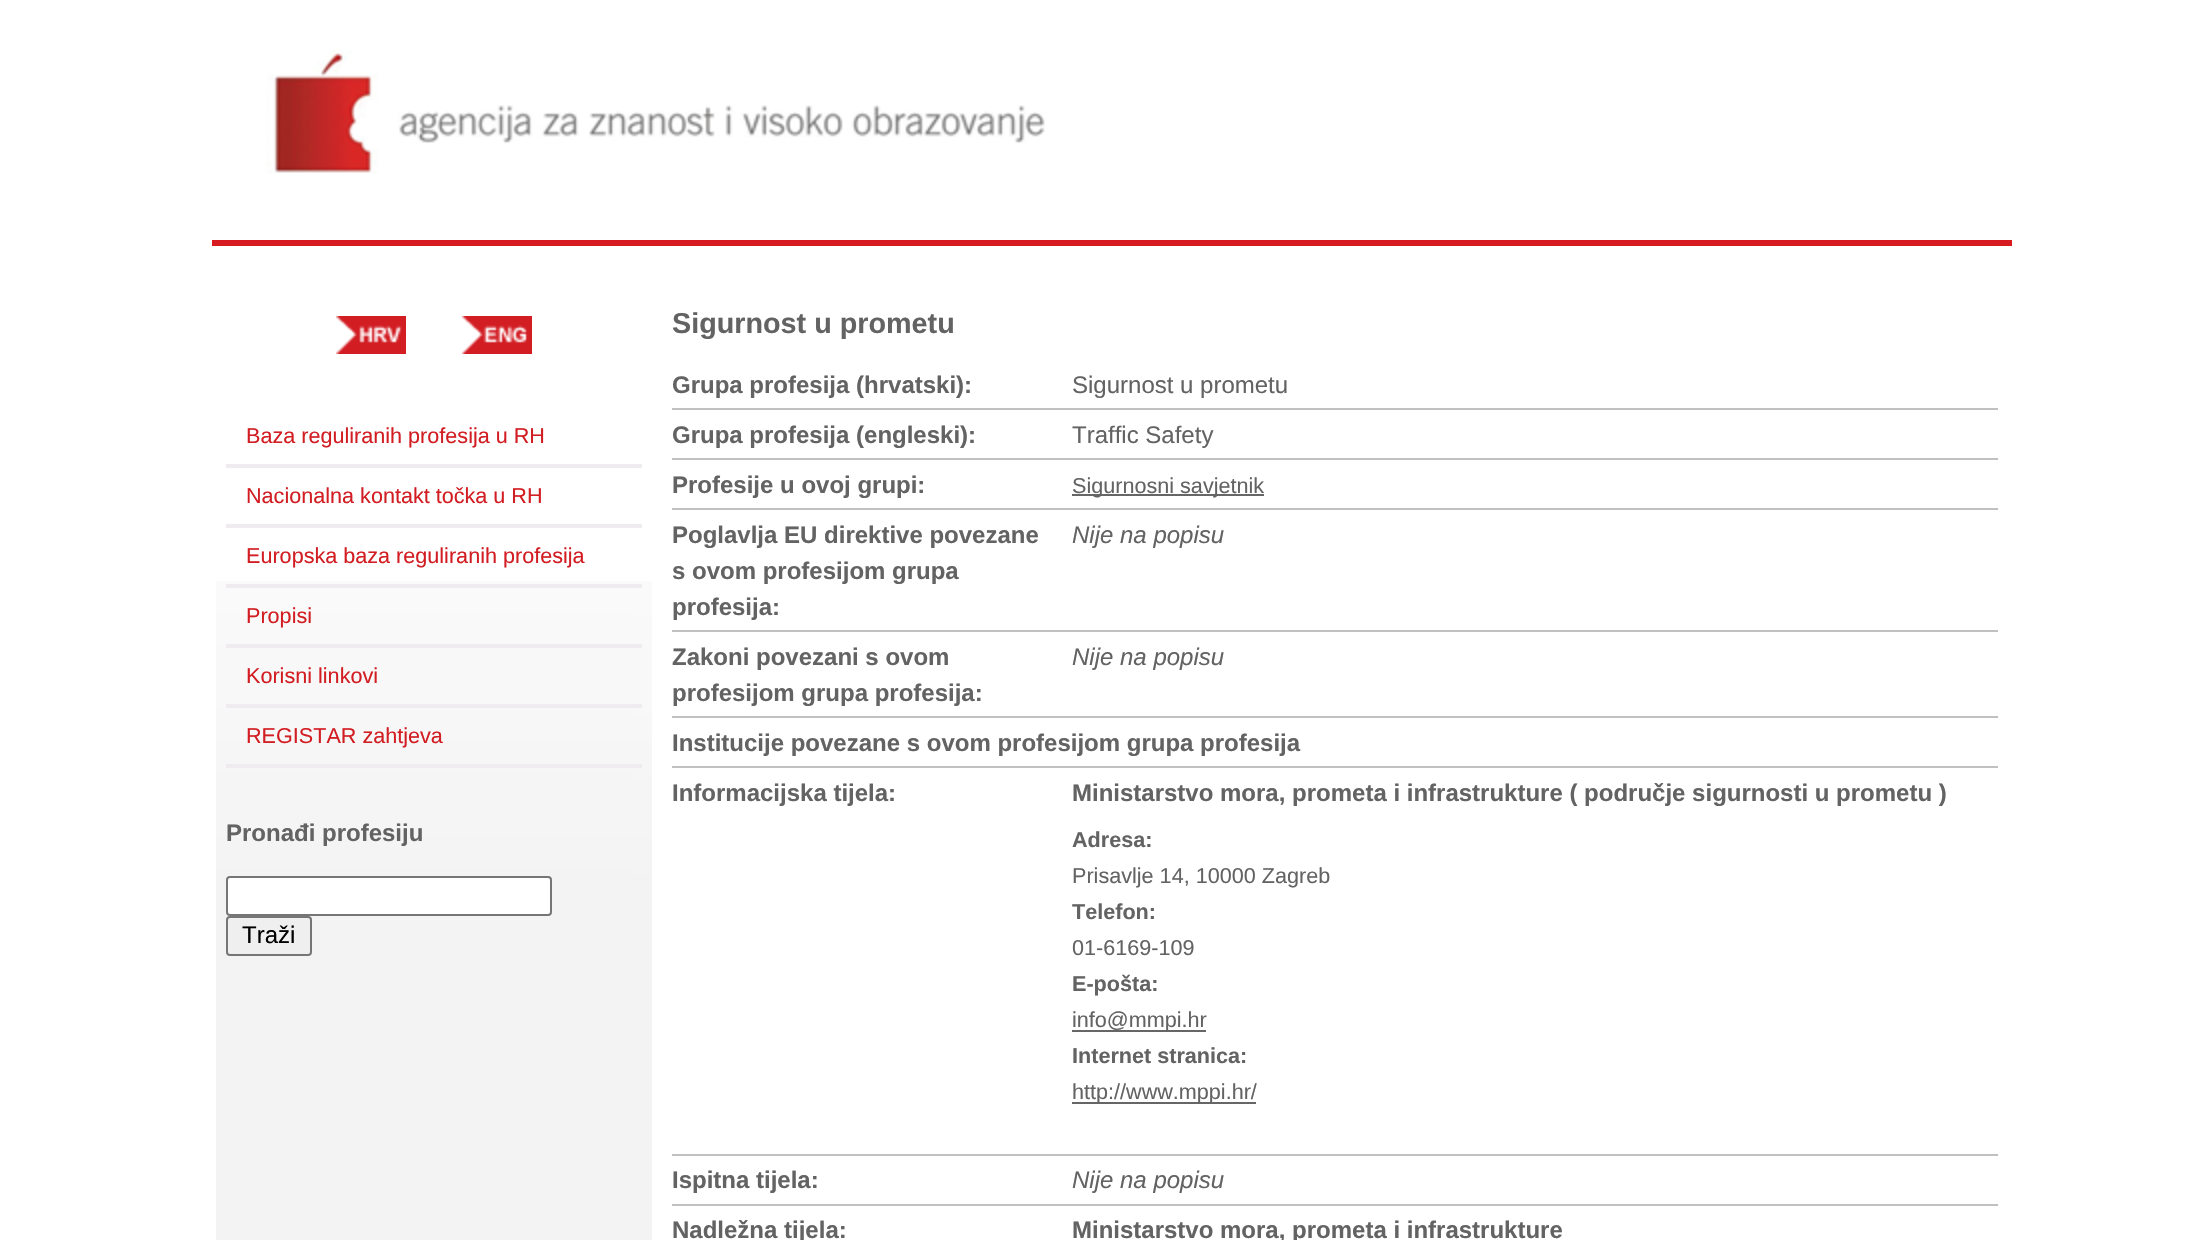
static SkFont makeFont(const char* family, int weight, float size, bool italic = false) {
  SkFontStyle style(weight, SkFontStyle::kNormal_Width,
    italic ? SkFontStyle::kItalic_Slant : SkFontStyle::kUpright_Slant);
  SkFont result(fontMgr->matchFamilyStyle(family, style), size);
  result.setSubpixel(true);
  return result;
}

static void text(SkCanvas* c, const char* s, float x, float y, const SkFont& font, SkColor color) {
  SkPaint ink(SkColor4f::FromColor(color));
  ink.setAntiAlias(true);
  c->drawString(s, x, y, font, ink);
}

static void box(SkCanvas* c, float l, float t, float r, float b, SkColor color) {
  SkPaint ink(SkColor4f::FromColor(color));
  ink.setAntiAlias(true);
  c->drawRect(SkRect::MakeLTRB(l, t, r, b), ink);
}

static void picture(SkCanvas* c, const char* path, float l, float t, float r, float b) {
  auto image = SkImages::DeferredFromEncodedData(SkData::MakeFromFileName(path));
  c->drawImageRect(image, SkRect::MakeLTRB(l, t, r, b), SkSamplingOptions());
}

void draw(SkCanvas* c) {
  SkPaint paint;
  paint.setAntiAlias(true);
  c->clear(0xffffffff);
  picture(c, "img_01.png", 266, 50, 1045, 174);
  box(c, 212, 240, 2012, 246, 0xffd61c21);
  picture(c, "img_02.png", 216, 581, 652, 1240);
  picture(c, "img_03.png", 336, 316, 406, 354);
  picture(c, "img_04.png", 462, 316, 532, 354);
  box(c, 226, 464, 642, 468, 0xffefebef);
  SkFont face1 = makeFont("Liberation Sans", 400, 21.6f);
  text(c, "Baza reguliranih profesija u RH", 246, 443, face1, 0xffd21d23);
  box(c, 226, 524, 642, 528, 0xffefebef);
  text(c, "Nacionalna kontakt točka u RH", 246, 503, face1, 0xffd21d23);
  box(c, 226, 584, 642, 588, 0xffefebef);
  text(c, "Europska baza reguliranih profesija", 246, 563, face1, 0xffd21d23);
  box(c, 226, 644, 642, 648, 0xffefebef);
  text(c, "Propisi", 246, 623, face1, 0xffd21d23);
  box(c, 226, 704, 642, 708, 0xffefebef);
  text(c, "Korisni linkovi", 246, 683, face1, 0xffd21d23);
  box(c, 226, 764, 642, 768, 0xffefebef);
  text(c, "REGISTAR zahtjeva", 246, 743, face1, 0xffd21d23);
  SkFont face2 = makeFont("Liberation Sans", 700, 24);
  text(c, "Pronađi profesiju", 226, 841, face2, 0xff636363);
  paint.setColor(0xffffffff);
  c->drawRoundRect(SkRect::MakeLTRB(227, 877, 551, 915), 3, 3, paint);
  paint.setStyle(SkPaint::kStroke_Style);
  paint.setStrokeWidth(2);
  paint.setColor(0xff767676);
  c->drawRoundRect(SkRect::MakeLTRB(227, 877, 551, 915), 3, 3, paint);
  paint.setStyle(SkPaint::kFill_Style);
  paint.setColor(0xffefefef);
  c->drawRoundRect(SkRect::MakeLTRB(227, 917, 311, 955), 3, 3, paint);
  paint.setStyle(SkPaint::kStroke_Style);
  paint.setColor(0xff767676);
  c->drawRoundRect(SkRect::MakeLTRB(227, 917, 311, 955), 3, 3, paint);
  SkFont face3 = makeFont("Liberation Sans", 400, 24);
  text(c, "Traži", 242, 943, face3, 0xff000000);
  SkFont face4 = makeFont("Liberation Sans", 700, 28.75f);
  text(c, "Sigurnost u prometu", 672, 333, face4, 0xff636363);
  text(c, "Grupa profesija (hrvatski):", 672, 393, face2, 0xff636363);
  box(c, 672, 408, 1998, 410, 0xffc0c0c0);
  text(c, "Sigurnost u prometu", 1072, 393, face3, 0xff636363);
  text(c, "Grupa profesija (engleski):", 672, 443, face2, 0xff636363);
  box(c, 672, 458, 1998, 460, 0xffc0c0c0);
  text(c, "Traffic Safety", 1072, 443, face3, 0xff636363);
  text(c, "Profesije u ovoj grupi:", 672, 493, face2, 0xff636363);
  box(c, 672, 508, 1998, 510, 0xffc0c0c0);
  box(c, 1072, 494, 1264, 496, 0xff666666);
  text(c, "Sigurnosni savjetnik", 1072, 493, face1, 0xff636363);
  text(c, "Poglavlja EU direktive povezane", 672, 543, face2, 0xff636363);
  text(c, "s ovom profesijom grupa", 672, 579, face2, 0xff636363);
  text(c, "profesija:", 672, 615, face2, 0xff636363);
  box(c, 672, 630, 1998, 632, 0xffc0c0c0);
  SkFont face5 = makeFont("Liberation Sans", 400, 24, true);
  text(c, "Nije na popisu", 1072, 543, face5, 0xff636363);
  text(c, "Zakoni povezani s ovom", 672, 665, face2, 0xff636363);
  text(c, "profesijom grupa profesija:", 672, 701, face2, 0xff636363);
  box(c, 672, 716, 1998, 718, 0xffc0c0c0);
  text(c, "Nije na popisu", 1072, 665, face5, 0xff636363);
  box(c, 672, 766, 1998, 768, 0xffc0c0c0);
  text(c, "Institucije povezane s ovom profesijom grupa profesija", 672, 751, face2, 0xff636363);
  text(c, "Informacijska tijela:", 672, 801, face2, 0xff636363);
  box(c, 672, 1154, 1998, 1156, 0xffc0c0c0);
  text(c, "Ministarstvo mora, prometa i infrastrukture ( područje sigurnosti u prometu )", 1072, 801, face2, 0xff636363);
  SkFont face6 = makeFont("Liberation Sans", 700, 21.6f);
  text(c, "Adresa:", 1072, 847, face6, 0xff636363);
  text(c, "Prisavlje 14, 10000 Zagreb", 1072, 883, face1, 0xff636363);
  text(c, "Telefon:", 1072, 919, face6, 0xff636363);
  text(c, "01-6169-109", 1072, 955, face1, 0xff636363);
  text(c, "E-pošta:", 1072, 991, face6, 0xff636363);
  box(c, 1072, 1030, 1206, 1032, 0xff666666);
  text(c, "info@mmpi.hr", 1072, 1027, face1, 0xff636363);
  text(c, "Internet stranica:", 1072, 1063, face6, 0xff636363);
  box(c, 1072, 1102, 1256, 1104, 0xff666666);
  text(c, "http://www.mppi.hr/", 1072, 1099, face1, 0xff636363);
  text(c, "Ispitna tijela:", 672, 1188, face2, 0xff636363);
  box(c, 672, 1204, 1998, 1206, 0xffc0c0c0);
  text(c, "Nije na popisu", 1072, 1188, face5, 0xff636363);
  text(c, "Nadležna tijela:", 672, 1238, face2, 0xff636363);
  text(c, "Ministarstvo mora, prometa i infrastrukture", 1072, 1238, face2, 0xff636363);
}
